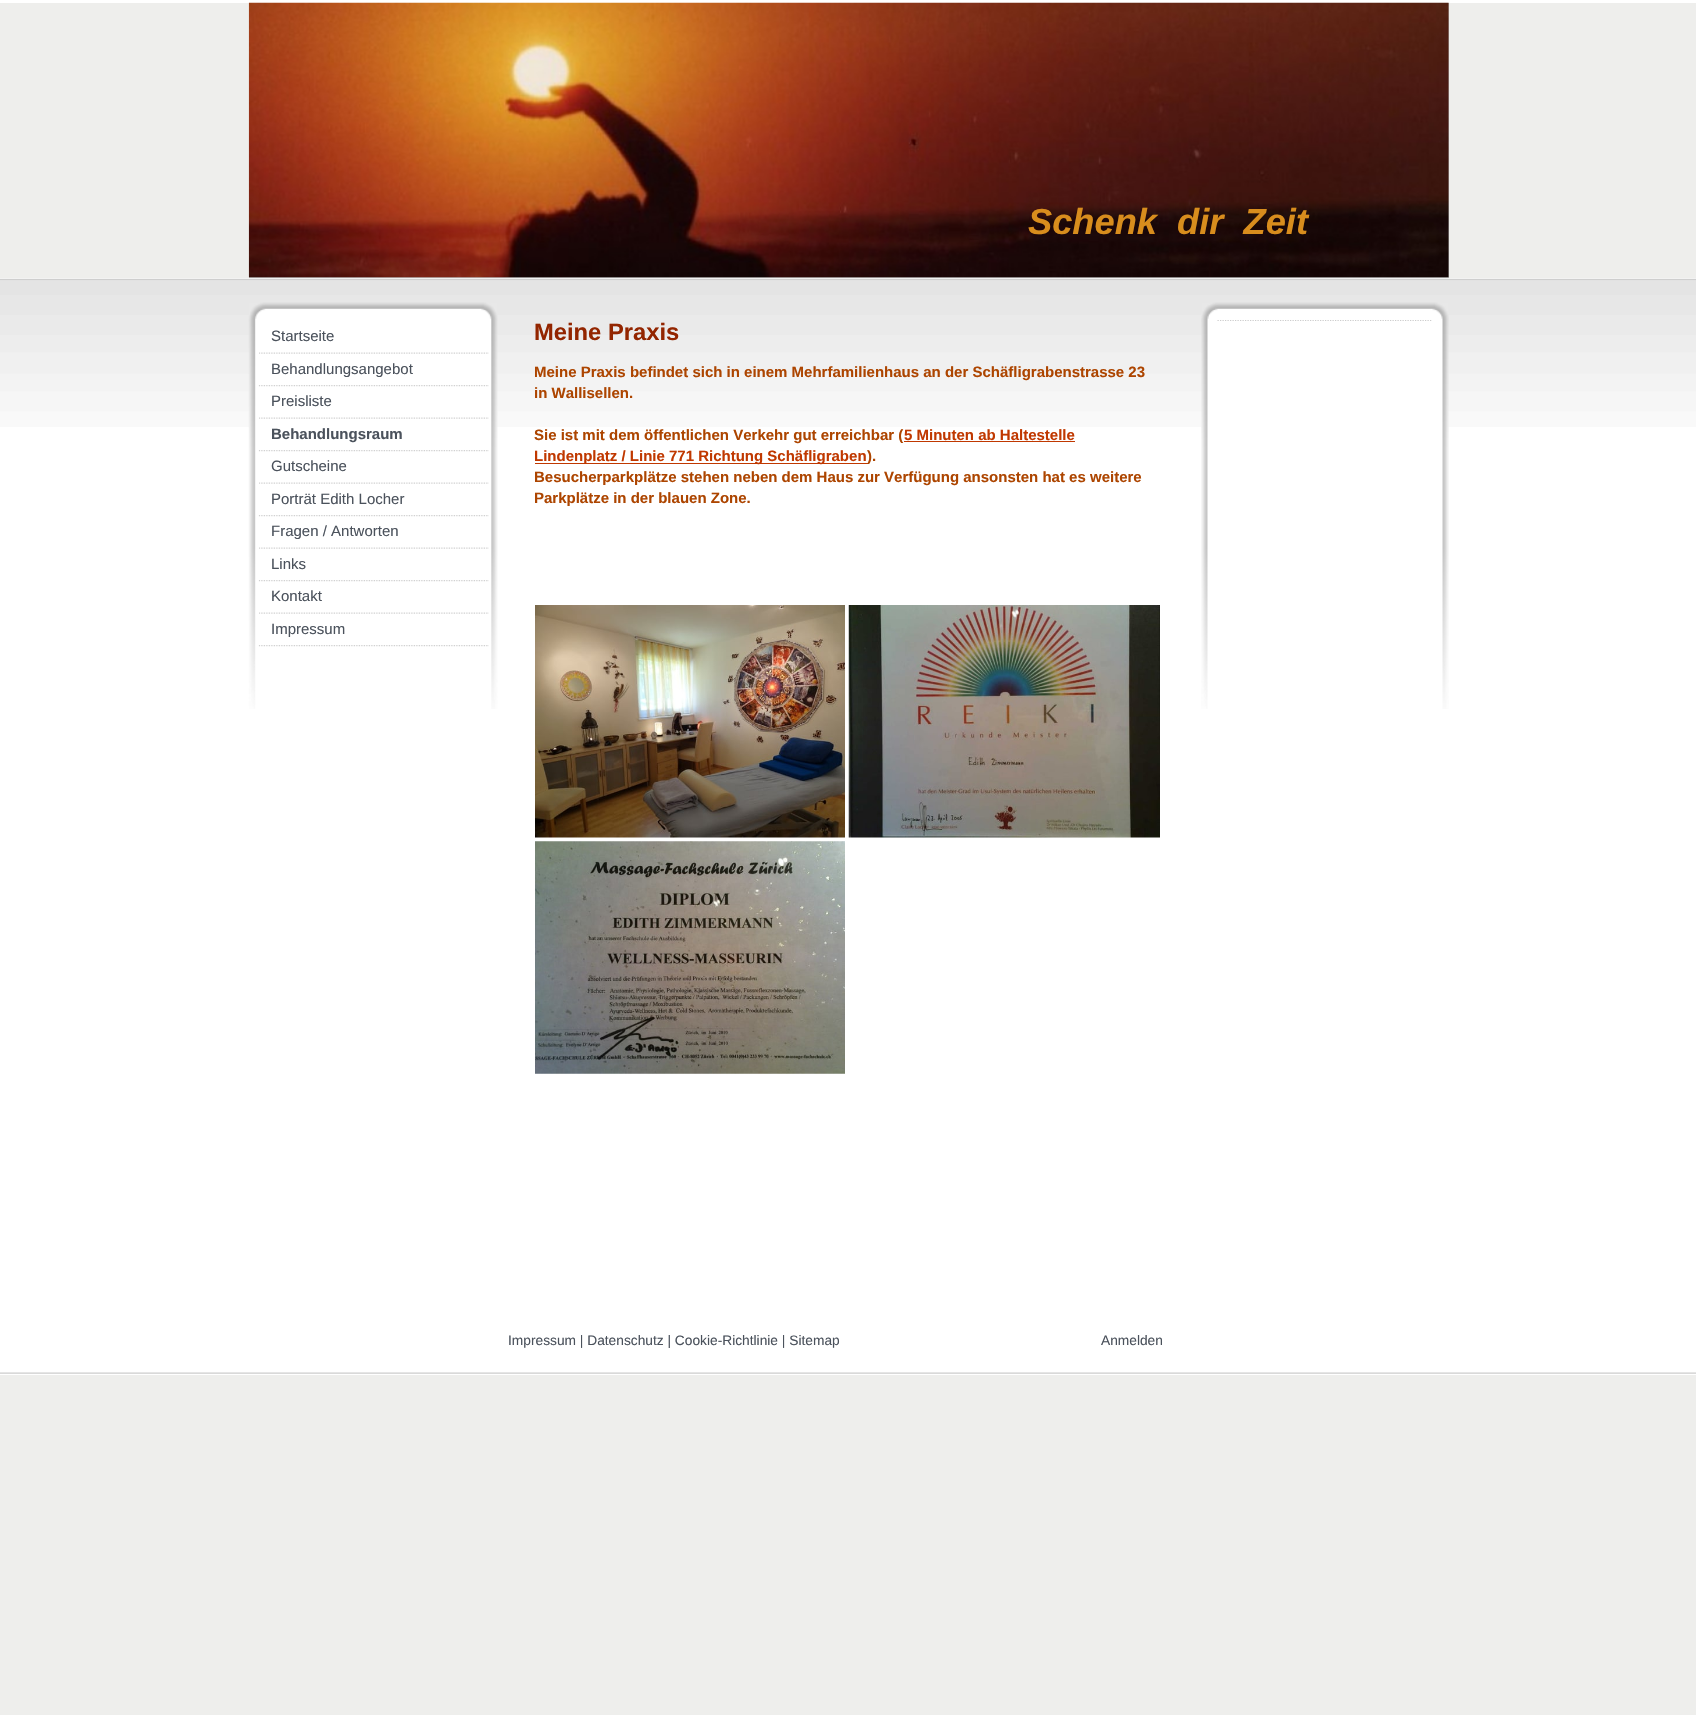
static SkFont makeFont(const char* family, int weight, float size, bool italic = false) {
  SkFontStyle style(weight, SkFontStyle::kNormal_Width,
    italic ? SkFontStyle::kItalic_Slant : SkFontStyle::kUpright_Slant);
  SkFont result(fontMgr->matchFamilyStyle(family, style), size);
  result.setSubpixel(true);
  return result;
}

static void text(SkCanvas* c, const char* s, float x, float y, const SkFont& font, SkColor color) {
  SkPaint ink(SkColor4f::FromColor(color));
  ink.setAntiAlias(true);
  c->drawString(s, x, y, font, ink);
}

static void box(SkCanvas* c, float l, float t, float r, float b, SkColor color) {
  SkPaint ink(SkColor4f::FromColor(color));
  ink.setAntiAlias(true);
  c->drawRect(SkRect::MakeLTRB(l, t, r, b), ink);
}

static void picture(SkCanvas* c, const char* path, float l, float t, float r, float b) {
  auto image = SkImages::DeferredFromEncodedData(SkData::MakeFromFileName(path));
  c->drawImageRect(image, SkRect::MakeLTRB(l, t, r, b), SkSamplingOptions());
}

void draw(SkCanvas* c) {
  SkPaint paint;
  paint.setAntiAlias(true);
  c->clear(0xffeeeeec);
  box(c, 0, 0, 1696, 3, 0xffffffff);
  box(c, 249, 3, 1449, 278, 0xffb8b8b8);
  picture(c, "img_01.png", 248, 2, 1449, 278);
  SkFont face1 = makeFont("Liberation Sans", 700, 36.25f, true);
  text(c, "Schenk  dir  Zeit", 1028, 234, face1, 0xffd88d1d);
  box(c, 0, 278, 1696, 1375, 0xffffffff);
  picture(c, "img_02.png", 0, 1372, 1696, 1374);
  picture(c, "img_03.png", 0, 278, 1696, 427);
  picture(c, "img_04.png", 248, 302, 498, 709);
  picture(c, "img_05.png", 259, 352, 489, 354);
  SkFont face2 = makeFont("Liberation Sans", 400, 15);
  text(c, "Startseite", 271, 341, face2, 0xff4b525c);
  picture(c, "img_06.png", 258, 385, 489, 387);
  text(c, "Behandlungsangebot", 271, 374, face2, 0xff4b525c);
  picture(c, "img_05.png", 259, 417, 489, 419);
  text(c, "Preisliste", 271, 406, face2, 0xff4b525c);
  picture(c, "img_06.png", 258, 450, 489, 452);
  SkFont face3 = makeFont("Liberation Sans", 700, 15);
  text(c, "Behandlungsraum", 271, 439, face3, 0xff4b525c);
  picture(c, "img_05.png", 259, 482, 489, 484);
  text(c, "Gutscheine", 271, 471, face2, 0xff4b525c);
  picture(c, "img_06.png", 258, 515, 489, 517);
  text(c, "Porträt Edith Locher", 271, 504, face2, 0xff4b525c);
  picture(c, "img_05.png", 259, 547, 489, 549);
  text(c, "Fragen / Antworten", 271, 536, face2, 0xff4b525c);
  picture(c, "img_06.png", 258, 580, 489, 582);
  text(c, "Links", 271, 569, face2, 0xff4b525c);
  picture(c, "img_05.png", 259, 612, 489, 614);
  text(c, "Kontakt", 271, 601, face2, 0xff4b525c);
  picture(c, "img_06.png", 258, 645, 489, 647);
  text(c, "Impressum", 271, 634, face2, 0xff4b525c);
  SkFont face4 = makeFont("Liberation Sans", 700, 23.75f);
  text(c, "Meine Praxis", 534, 340, face4, 0xff932500);
  text(c, "Meine Praxis befindet sich in einem Mehrfamilienhaus an der Schäfligrabenstrasse 23", 534, 377, face3, 0xffad4500);
  text(c, "in Wallisellen.", 534, 398, face3, 0xffad4500);
  text(c, "Sie ist mit dem öffentlichen Verkehr gut erreichbar (", 534, 440, face3, 0xffad4500);
  box(c, 904, 441, 1075, 442, 0xffc03800);
  text(c, "5 Minuten ab Haltestelle", 904, 440, face3, 0xffc03800);
  box(c, 535, 463, 868, 464, 0xffc03800);
  text(c, "Lindenplatz / Linie 771 Richtung Schäfligraben", 534, 461, face3, 0xffc03800);
  text(c, ").", 867, 461, face3, 0xffad4500);
  text(c, "Besucherparkplätze stehen neben dem Haus zur Verfügung ansonsten hat es weitere", 534, 482, face3, 0xffad4500);
  text(c, "Parkplätze in der blauen Zone.", 534, 503, face3, 0xffad4500);
  picture(c, "img_07.png", 535, 605, 845, 838);
  picture(c, "img_08.png", 848, 605, 1160, 838);
  picture(c, "img_09.png", 535, 841, 845, 1074);
  picture(c, "img_10.png", 1201, 302, 1449, 709);
  paint.setStyle(SkPaint::kStroke_Style);
  paint.setStrokeWidth(1.2f);
  paint.setColor(0xffcccccc);
  paint.setPathEffect(SkDashPathEffect::Make({{1.25f, 1.25f}}, 0));
  c->drawPath(SkPathBuilder().moveTo(1217.5f, 320.5f).lineTo(1432.5f, 320.5f).detach(), paint);
  paint.setPathEffect(nullptr);
  SkFont face5 = makeFont("Liberation Sans", 400, 13.75f);
  text(c, "Impressum | Datenschutz | Cookie-Richtlinie | Sitemap", 508, 1345, face5, 0xff4b525c);
  text(c, "Anmelden", 1101, 1345, face5, 0xff4b525c);
}
